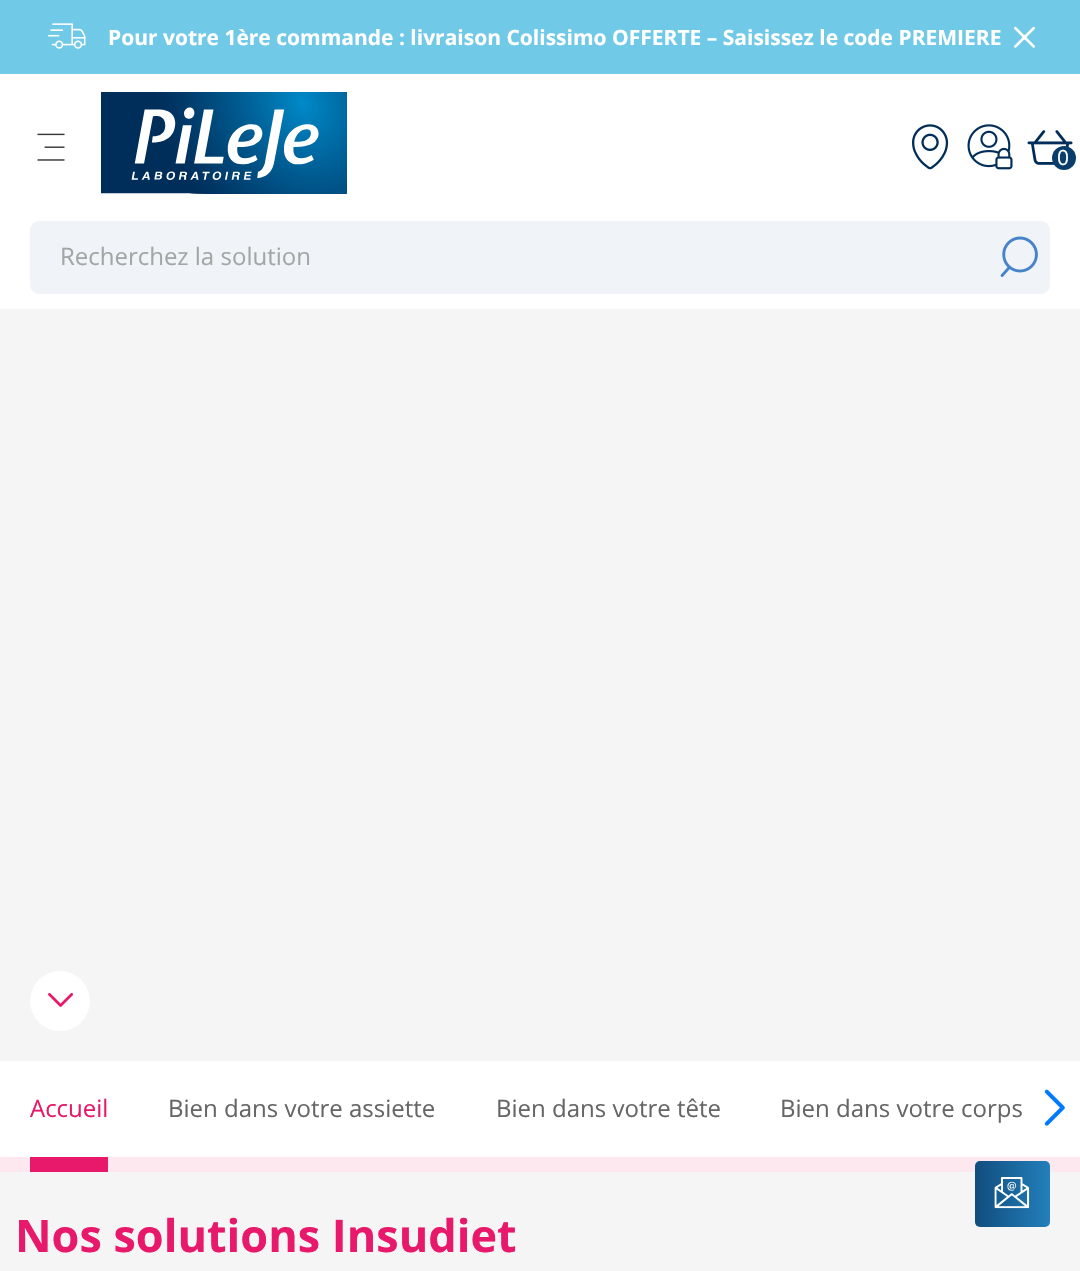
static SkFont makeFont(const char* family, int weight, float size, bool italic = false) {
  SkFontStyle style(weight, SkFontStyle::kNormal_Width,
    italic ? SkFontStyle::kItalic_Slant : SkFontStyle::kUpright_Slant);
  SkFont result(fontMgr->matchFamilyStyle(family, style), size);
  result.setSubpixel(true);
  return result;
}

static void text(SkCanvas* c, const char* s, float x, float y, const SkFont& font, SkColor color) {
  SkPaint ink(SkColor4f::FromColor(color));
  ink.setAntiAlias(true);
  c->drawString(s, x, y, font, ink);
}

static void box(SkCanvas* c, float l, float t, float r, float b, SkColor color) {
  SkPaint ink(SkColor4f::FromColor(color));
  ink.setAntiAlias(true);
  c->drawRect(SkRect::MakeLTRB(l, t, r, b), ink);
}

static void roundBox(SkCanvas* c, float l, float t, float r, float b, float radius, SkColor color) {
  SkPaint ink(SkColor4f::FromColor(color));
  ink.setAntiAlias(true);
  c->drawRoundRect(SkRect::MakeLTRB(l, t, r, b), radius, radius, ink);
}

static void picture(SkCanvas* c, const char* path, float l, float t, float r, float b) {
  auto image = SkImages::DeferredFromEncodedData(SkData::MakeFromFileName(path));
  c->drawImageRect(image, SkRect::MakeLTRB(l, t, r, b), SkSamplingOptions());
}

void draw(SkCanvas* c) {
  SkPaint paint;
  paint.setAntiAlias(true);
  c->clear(0xffffffff);
  box(c, 0, 0, 1080, 74, 0xff70c9e6);
  picture(c, "img_01.png", 48, 23, 86, 49);
  SkFont face1 = makeFont("Open Sans", 700, 21);
  text(c, "Pour votre 1ère commande : livraison Colissimo OFFERTE – Saisissez le code PREMIERE", 108, 45, face1, 0xffffffff);
  picture(c, "img_02.png", 1014, 26, 1035, 48);
  picture(c, "img_03.png", 37, 133, 65, 161);
  picture(c, "img_04.png", 101, 92, 347, 194);
  picture(c, "img_05.png", 912, 124, 949, 170);
  picture(c, "img_06.png", 967, 124, 1013, 170);
  picture(c, "img_07.png", 1027, 130, 1073, 165);
  paint.setColor(0xff0a3d6b);
  c->drawCircle(1064, 158, 12, paint);
  SkFont face2 = makeFont("Open Sans", 400, 21);
  text(c, "0", 1057, 165, face2, 0xffffffff);
  roundBox(c, 30, 221, 1050, 294, 9, 0xfff0f4f9);
  SkFont face3 = makeFont("Open Sans", 400, 24);
  text(c, "Recherchez la solution", 60, 265, face3, 0xffa2a7a5);
  picture(c, "img_08.png", 1000, 236, 1038, 277);
  box(c, 0, 309, 1080, 1271, 0xfff5f5f5);
  paint.setColor(0xffffffff);
  c->drawCircle(60, 1001, 30, paint);
  picture(c, "img_09.png", 48, 993, 73, 1007);
  box(c, 0, 1061, 1080, 1157, 0xffffffff);
  box(c, 0, 1157, 1080, 1172, 0xfffde8f0);
  text(c, "Accueil", 30, 1117, face3, 0xffe8186b);
  box(c, 30, 1157, 108, 1172, 0xffe8186b);
  text(c, "Bien dans votre assiette", 168, 1117, face3, 0xff666666);
  text(c, "Bien dans votre tête", 496, 1117, face3, 0xff666666);
  text(c, "Bien dans votre corps", 780, 1117, face3, 0xff666666);
  picture(c, "img_10.png", 1044, 1089, 1065, 1126);
  SkFont face4 = makeFont("Open Sans", 700, 45);
  text(c, "Nos solutions Insudiet", 15, 1252, face4, 0xffe8186b);
  {
    const SkColor colors[] = {0xff237fbb, 0xff114d7e};
    const float stops[] = {0, 1};
    const SkPoint ends[] = {{1050, 1194}, {975, 1194}};
    paint.setShader(SkGradientShader::MakeLinear(ends, colors, stops, 2, SkTileMode::kClamp));
    paint.setAlpha(255);
  }
  c->drawRoundRect(SkRect::MakeLTRB(975, 1161, 1050, 1227), 5, 5, paint);
  picture(c, "img_11.png", 994, 1177, 1030, 1209);
}
